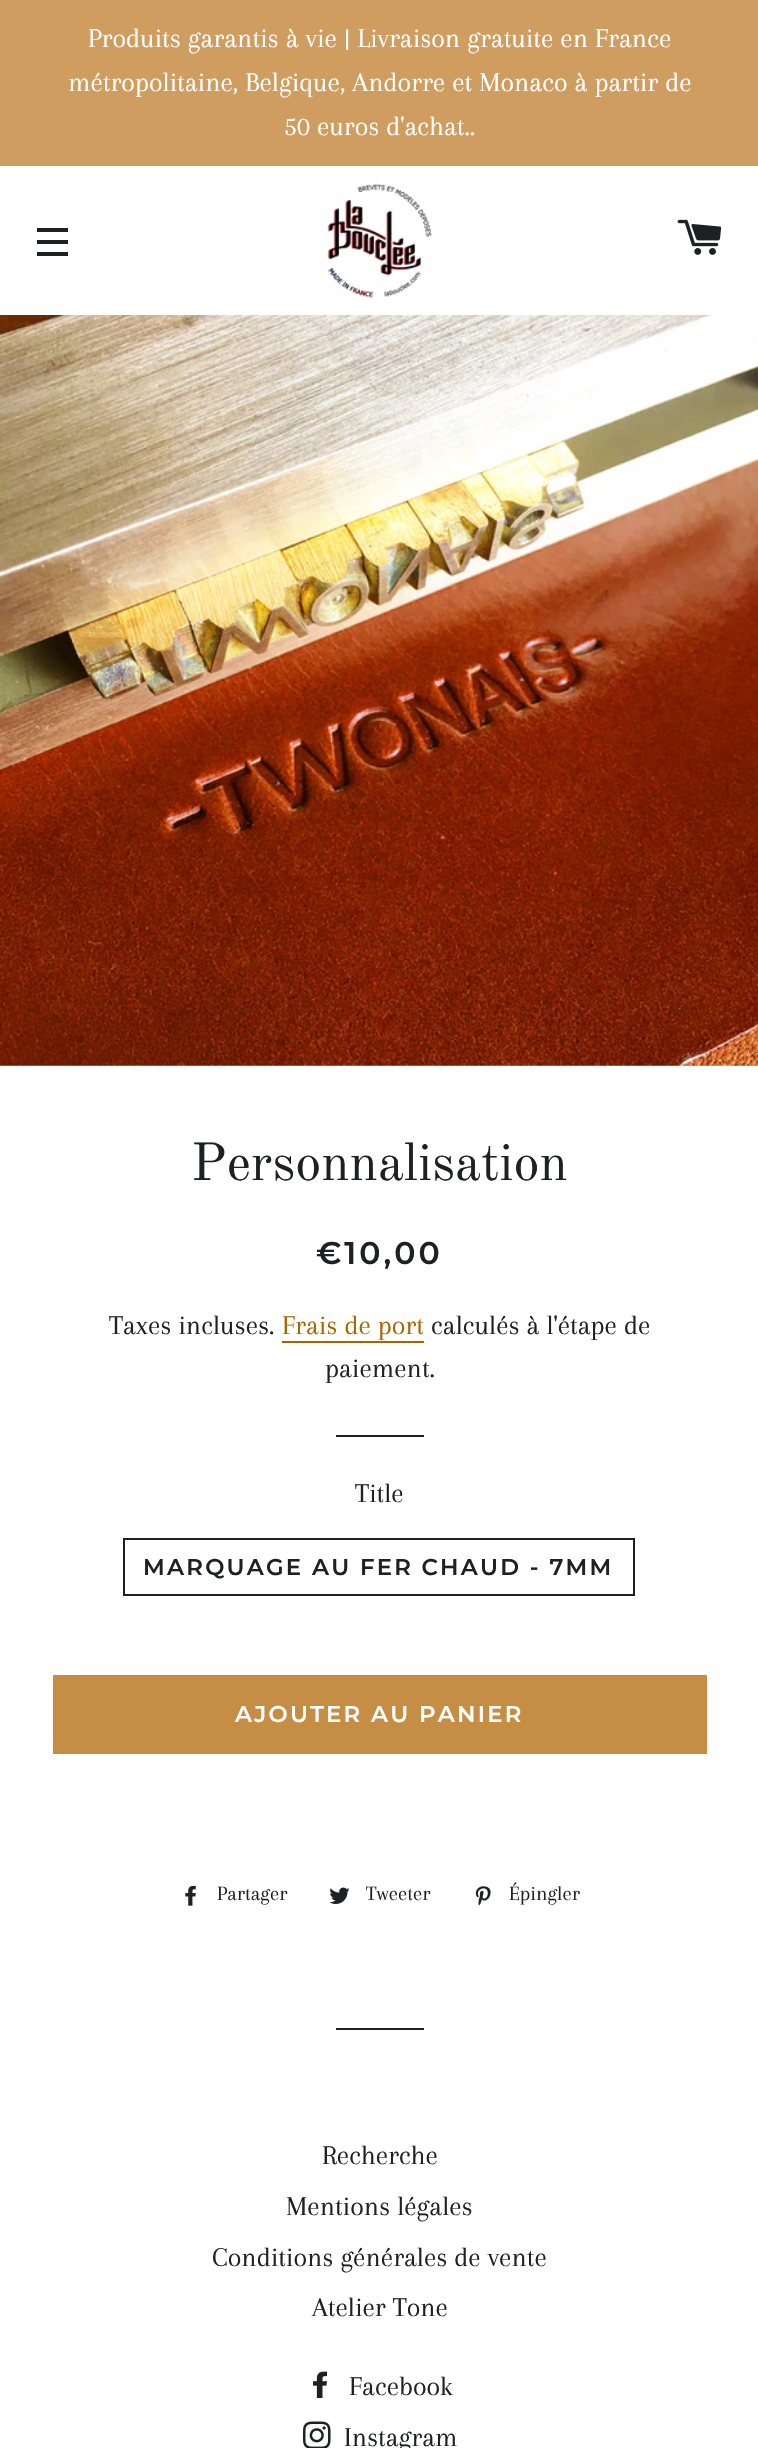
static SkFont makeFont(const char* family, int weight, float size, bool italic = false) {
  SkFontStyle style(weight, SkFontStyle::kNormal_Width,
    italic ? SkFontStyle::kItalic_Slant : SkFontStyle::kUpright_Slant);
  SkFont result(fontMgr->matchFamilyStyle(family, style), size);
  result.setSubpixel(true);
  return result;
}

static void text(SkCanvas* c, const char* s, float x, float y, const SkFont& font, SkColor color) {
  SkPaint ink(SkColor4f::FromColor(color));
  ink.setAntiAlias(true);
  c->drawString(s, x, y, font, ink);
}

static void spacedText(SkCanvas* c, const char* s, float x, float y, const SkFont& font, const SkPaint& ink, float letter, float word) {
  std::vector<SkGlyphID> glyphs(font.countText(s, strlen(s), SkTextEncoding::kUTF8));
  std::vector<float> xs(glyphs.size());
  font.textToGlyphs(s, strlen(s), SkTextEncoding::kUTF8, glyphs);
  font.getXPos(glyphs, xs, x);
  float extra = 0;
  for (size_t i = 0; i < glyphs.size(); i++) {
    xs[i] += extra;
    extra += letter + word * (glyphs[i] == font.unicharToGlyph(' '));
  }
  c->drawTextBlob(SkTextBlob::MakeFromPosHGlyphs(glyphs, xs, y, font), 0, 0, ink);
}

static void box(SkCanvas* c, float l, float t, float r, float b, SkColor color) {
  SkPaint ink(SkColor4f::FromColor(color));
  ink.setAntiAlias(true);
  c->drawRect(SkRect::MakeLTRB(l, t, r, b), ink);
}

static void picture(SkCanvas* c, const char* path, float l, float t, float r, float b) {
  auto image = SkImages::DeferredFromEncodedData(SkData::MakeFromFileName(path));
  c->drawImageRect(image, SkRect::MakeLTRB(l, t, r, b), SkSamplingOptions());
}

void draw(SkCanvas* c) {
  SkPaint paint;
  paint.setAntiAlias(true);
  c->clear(0xffffffff);
  box(c, 0, 0, 758, 166, 0xffce9d5f);
  SkFont face1 = makeFont("Arapey", 400, 28);
  text(c, "Produits garantis à vie | Livraison gratuite en France", 88, 47, face1, 0xffffffff);
  text(c, "métropolitaine, Belgique, Andorre et Monaco à partir de", 68, 91, face1, 0xffffffff);
  text(c, "50 euros d'achat..", 284, 135, face1, 0xffffffff);
  box(c, 37, 228, 68, 232, 0xff1f2021);
  box(c, 37, 240, 68, 244, 0xff1f2021);
  box(c, 37, 252, 68, 256, 0xff1f2021);
  picture(c, "img_01.png", 327, 183, 432, 298);
  picture(c, "img_02.png", 677, 219, 722, 255);
  picture(c, "img_03.png", 0, 315, 758, 1066);
  SkFont face2 = makeFont("Old Standard TT", 400, 52.5f);
  text(c, "Personnalisation", 191, 1180, face2, 0xff1f2021);
  SkFont face3 = makeFont("Montserrat", 600, 31.5f);
  paint.setColor(0xff1f2021);
  spacedText(c, "€10,00", 316, 1264, face3, paint, 3, 0);
  text(c, "Taxes incluses.", 109, 1334, face1, 0xff1f2021);
  text(c, "Frais de port", 282, 1334, face1, 0xffa56600);
  box(c, 282, 1341, 424, 1343, 0xffa56600);
  text(c, "calculés à l'étape de", 431, 1334, face1, 0xff1f2021);
  text(c, "paiement.", 325, 1377, face1, 0xff1f2021);
  box(c, 336, 1435, 424, 1437, 0xff1f2021);
  text(c, "Title", 355, 1502, face1, 0xff1f2021);
  paint.setStyle(SkPaint::kStroke_Style);
  paint.setStrokeWidth(2);
  c->drawRect(SkRect::MakeLTRB(124, 1539, 634, 1595), paint);
  SkFont face4 = makeFont("Montserrat", 600, 22.75f);
  paint.setStyle(SkPaint::kFill_Style);
  spacedText(c, "MARQUAGE AU FER CHAUD - 7MM", 143, 1575, face4, paint, 2.25f, 0);
  box(c, 53, 1675, 707, 1754, 0xffc68d45);
  paint.setColor(0xffffffff);
  spacedText(c, "AJOUTER AU PANIER", 235, 1722, face4, paint, 2.25f, 0);
  picture(c, "img_04.png", 185, 1885, 196, 1906);
  SkFont face5 = makeFont("Arapey", 400, 21);
  text(c, "Partager", 217, 1900, face5, 0xff1f2021);
  picture(c, "img_05.png", 329, 1887, 350, 1904);
  text(c, "Tweeter", 366, 1900, face5, 0xff1f2021);
  picture(c, "img_06.png", 475, 1886, 491, 1906);
  text(c, "Épingler", 509, 1900, face5, 0xff1f2021);
  box(c, 336, 2028, 424, 2030, 0xff1f2021);
  text(c, "Recherche", 322, 2164, face1, 0xff1f2021);
  text(c, "Mentions légales", 286, 2215, face1, 0xff1f2021);
  text(c, "Conditions générales de vente", 212, 2266, face1, 0xff1f2021);
  text(c, "Atelier Tone", 312, 2316, face1, 0xff1f2021);
  picture(c, "img_07.png", 312, 2371, 327, 2398);
  text(c, "Facebook", 349, 2395, face1, 0xff1f2021);
  picture(c, "img_08.png", 302, 2421, 331, 2448);
  text(c, "Instagram", 344, 2446, face1, 0xff1f2021);
}
